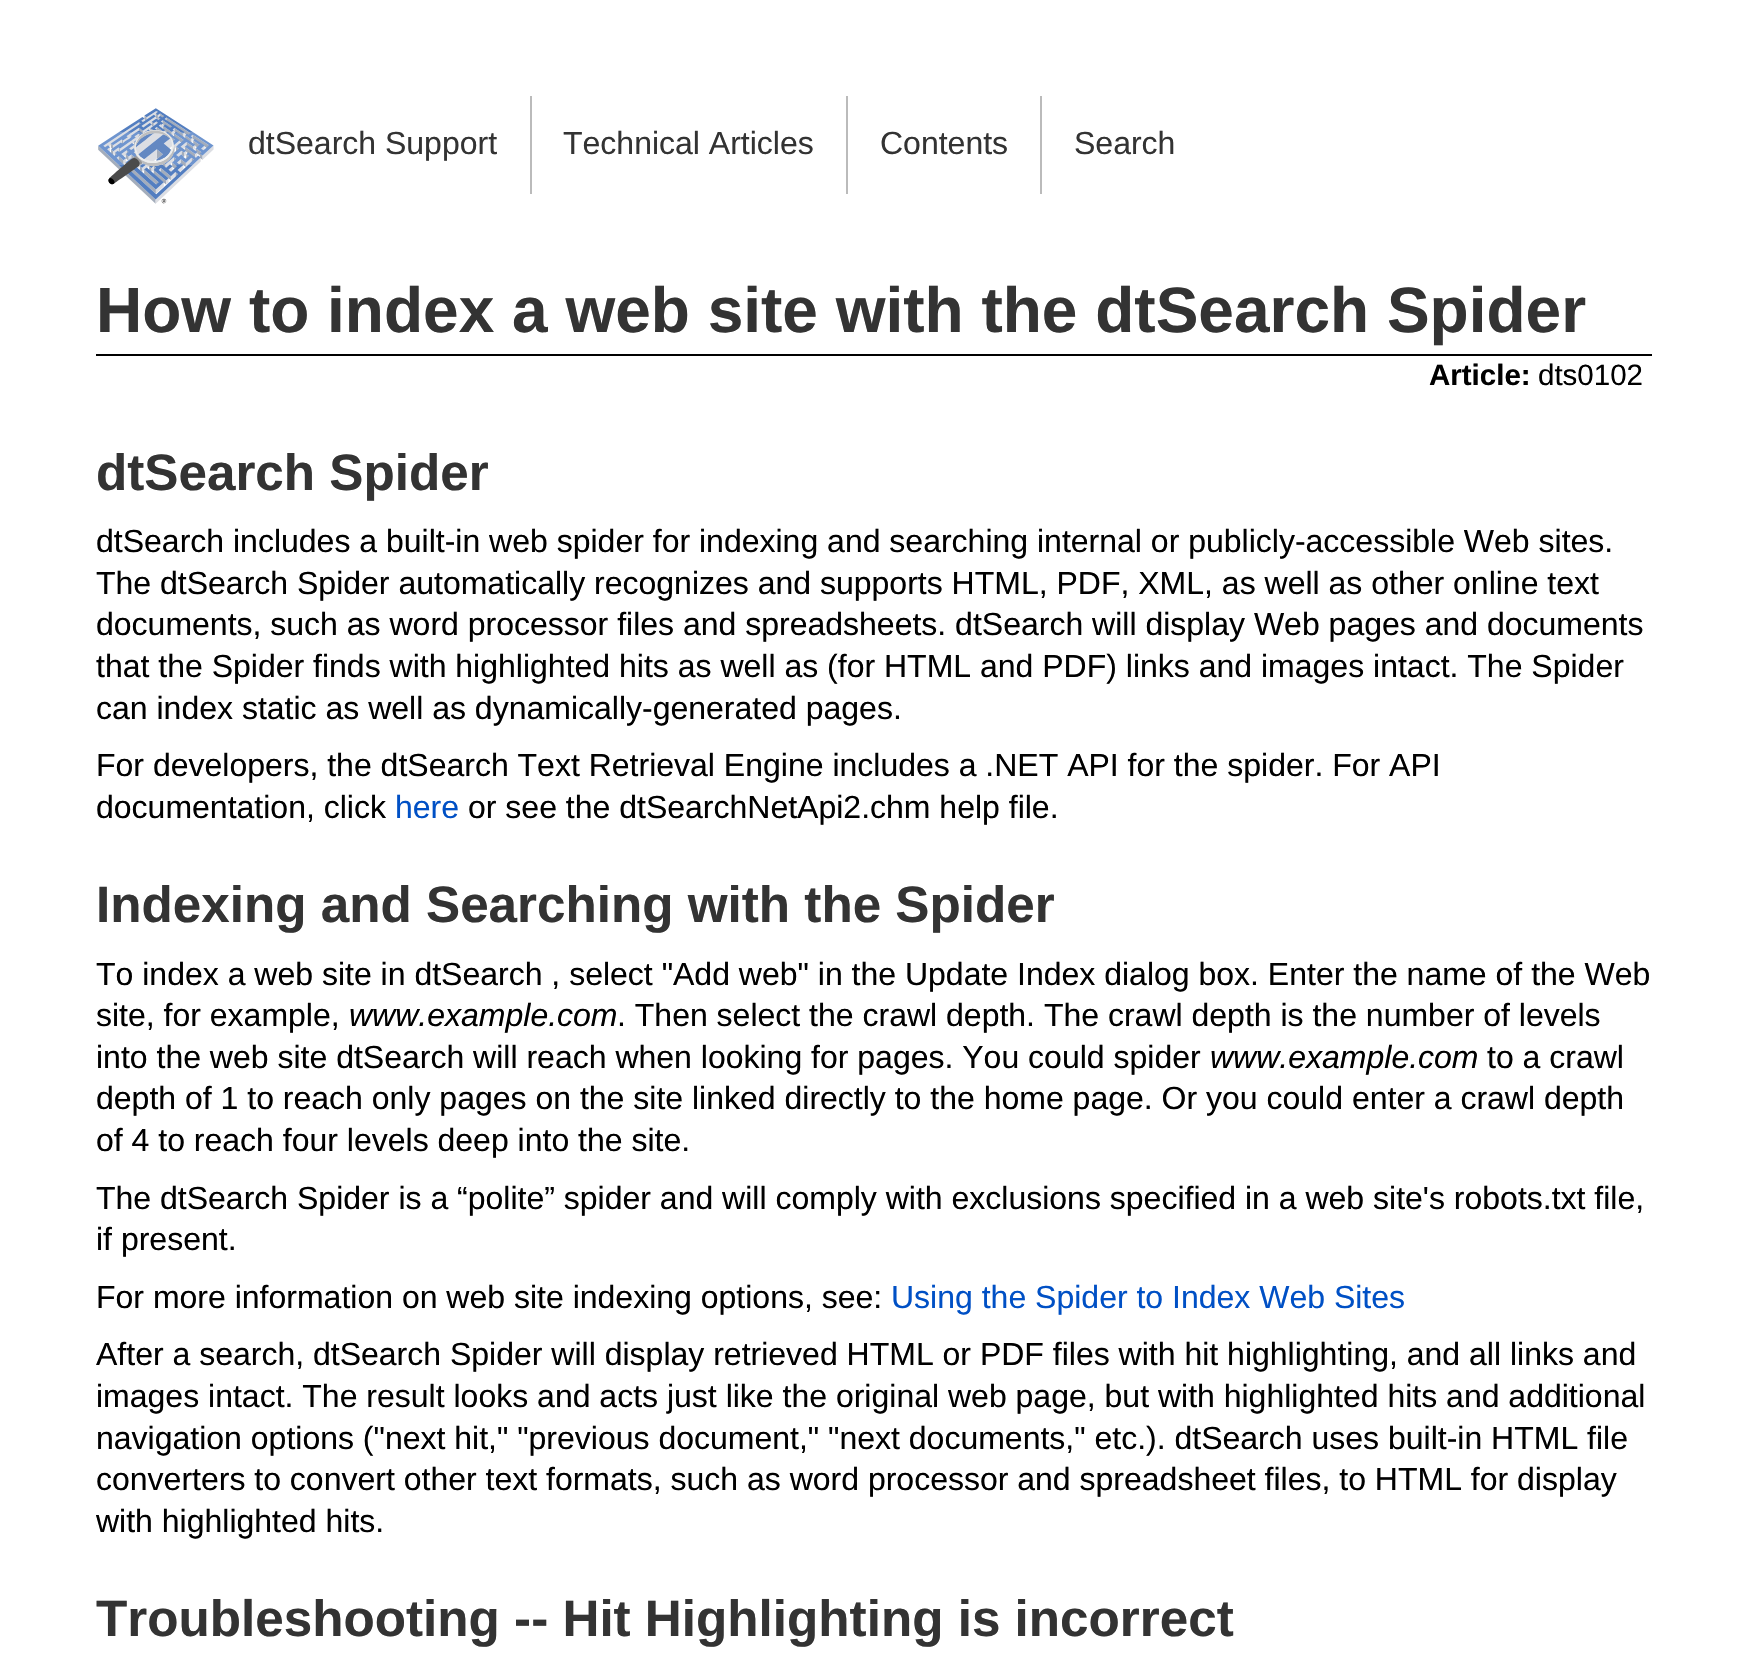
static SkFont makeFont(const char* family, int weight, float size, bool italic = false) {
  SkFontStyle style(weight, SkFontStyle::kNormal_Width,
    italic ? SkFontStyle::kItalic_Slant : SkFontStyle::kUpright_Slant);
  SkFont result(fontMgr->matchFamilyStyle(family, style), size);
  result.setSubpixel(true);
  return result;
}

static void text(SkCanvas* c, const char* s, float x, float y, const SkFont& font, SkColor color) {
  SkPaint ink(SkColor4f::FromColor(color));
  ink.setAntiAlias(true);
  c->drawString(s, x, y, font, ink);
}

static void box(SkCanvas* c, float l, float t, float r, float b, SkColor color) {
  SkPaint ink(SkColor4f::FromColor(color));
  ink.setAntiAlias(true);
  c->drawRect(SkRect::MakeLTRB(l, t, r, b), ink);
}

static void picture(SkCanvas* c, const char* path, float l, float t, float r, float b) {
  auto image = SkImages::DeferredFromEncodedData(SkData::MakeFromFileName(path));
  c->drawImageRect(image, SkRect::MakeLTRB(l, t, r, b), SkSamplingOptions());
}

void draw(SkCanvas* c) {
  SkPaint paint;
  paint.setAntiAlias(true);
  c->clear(0xffffffff);
  picture(c, "img_01.png", 98, 108, 214, 204);
  box(c, 530, 96, 532, 194, 0xffbbbbbb);
  SkFont face1 = makeFont("Liberation Sans", 400, 32);
  text(c, "dtSearch Support", 248, 154, face1, 0xff333333);
  box(c, 846, 96, 848, 194, 0xffbbbbbb);
  text(c, "Technical Articles", 563, 154, face1, 0xff333333);
  box(c, 1040, 96, 1042, 194, 0xffbbbbbb);
  text(c, "Contents", 880, 154, face1, 0xff333333);
  text(c, "Search", 1074, 154, face1, 0xff333333);
  box(c, 96, 354, 1652, 356, 0xff000000);
  SkFont face2 = makeFont("Liberation Sans", 700, 64);
  text(c, "How to index a web site with the dtSearch Spider", 96, 332, face2, 0xff333333);
  SkFont face3 = makeFont("Liberation Sans", 700, 29.5f);
  text(c, "Article:", 1429, 385, face3, 0xff000000);
  SkFont face4 = makeFont("Liberation Sans", 400, 29.5f);
  text(c, "dts0102", 1538, 385, face4, 0xff000000);
  SkFont face5 = makeFont("Liberation Sans", 700, 51.2f);
  text(c, "dtSearch Spider", 96, 490, face5, 0xff333333);
  text(c, "dtSearch includes a built-in web spider for indexing and searching internal or publicly-accessible Web sites.", 96, 552, face1, 0xff000000);
  text(c, "The dtSearch Spider automatically recognizes and supports HTML, PDF, XML, as well as other online text", 96, 594, face1, 0xff000000);
  text(c, "documents, such as word processor files and spreadsheets. dtSearch will display Web pages and documents", 96, 635, face1, 0xff000000);
  text(c, "that the Spider finds with highlighted hits as well as (for HTML and PDF) links and images intact. The Spider", 96, 677, face1, 0xff000000);
  text(c, "can index static as well as dynamically-generated pages.", 96, 719, face1, 0xff000000);
  text(c, "For developers, the dtSearch Text Retrieval Engine includes a .NET API for the spider. For API", 96, 776, face1, 0xff000000);
  text(c, "documentation, click", 96, 818, face1, 0xff000000);
  text(c, "here", 395, 818, face1, 0xff0050c5);
  text(c, "or see the dtSearchNetApi2.chm help file.", 468, 818, face1, 0xff000000);
  text(c, "Indexing and Searching with the Spider", 96, 922, face5, 0xff333333);
  text(c, "To index a web site in dtSearch , select \"Add web\" in the Update Index dialog box. Enter the name of the Web", 96, 985, face1, 0xff000000);
  text(c, "site, for example,", 96, 1026, face1, 0xff000000);
  SkFont face6 = makeFont("Liberation Sans", 400, 32, true);
  text(c, "www.example.com", 349, 1026, face6, 0xff000000);
  text(c, ". Then select the crawl depth. The crawl depth is the number of levels", 617, 1026, face1, 0xff000000);
  text(c, "into the web site dtSearch will reach when looking for pages. You could spider", 96, 1068, face1, 0xff000000);
  text(c, "www.example.com", 1210, 1068, face6, 0xff000000);
  text(c, "to a crawl", 1487, 1068, face1, 0xff000000);
  text(c, "depth of 1 to reach only pages on the site linked directly to the home page. Or you could enter a crawl depth", 96, 1109, face1, 0xff000000);
  text(c, "of 4 to reach four levels deep into the site.", 96, 1151, face1, 0xff000000);
  text(c, "The dtSearch Spider is a “polite” spider and will comply with exclusions specified in a web site's robots.txt file,", 96, 1209, face1, 0xff000000);
  text(c, "if present.", 96, 1250, face1, 0xff000000);
  text(c, "For more information on web site indexing options, see:", 96, 1308, face1, 0xff000000);
  text(c, "Using the Spider to Index Web Sites", 891, 1308, face1, 0xff0050c5);
  text(c, "After a search, dtSearch Spider will display retrieved HTML or PDF files with hit highlighting, and all links and", 96, 1365, face1, 0xff000000);
  text(c, "images intact. The result looks and acts just like the original web page, but with highlighted hits and additional", 96, 1407, face1, 0xff000000);
  text(c, "navigation options (\"next hit,\" \"previous document,\" \"next documents,\" etc.). dtSearch uses built-in HTML file", 96, 1449, face1, 0xff000000);
  text(c, "converters to convert other text formats, such as word processor and spreadsheet files, to HTML for display", 96, 1490, face1, 0xff000000);
  text(c, "with highlighted hits.", 96, 1532, face1, 0xff000000);
  text(c, "Troubleshooting -- Hit Highlighting is incorrect", 96, 1636, face5, 0xff333333);
}
